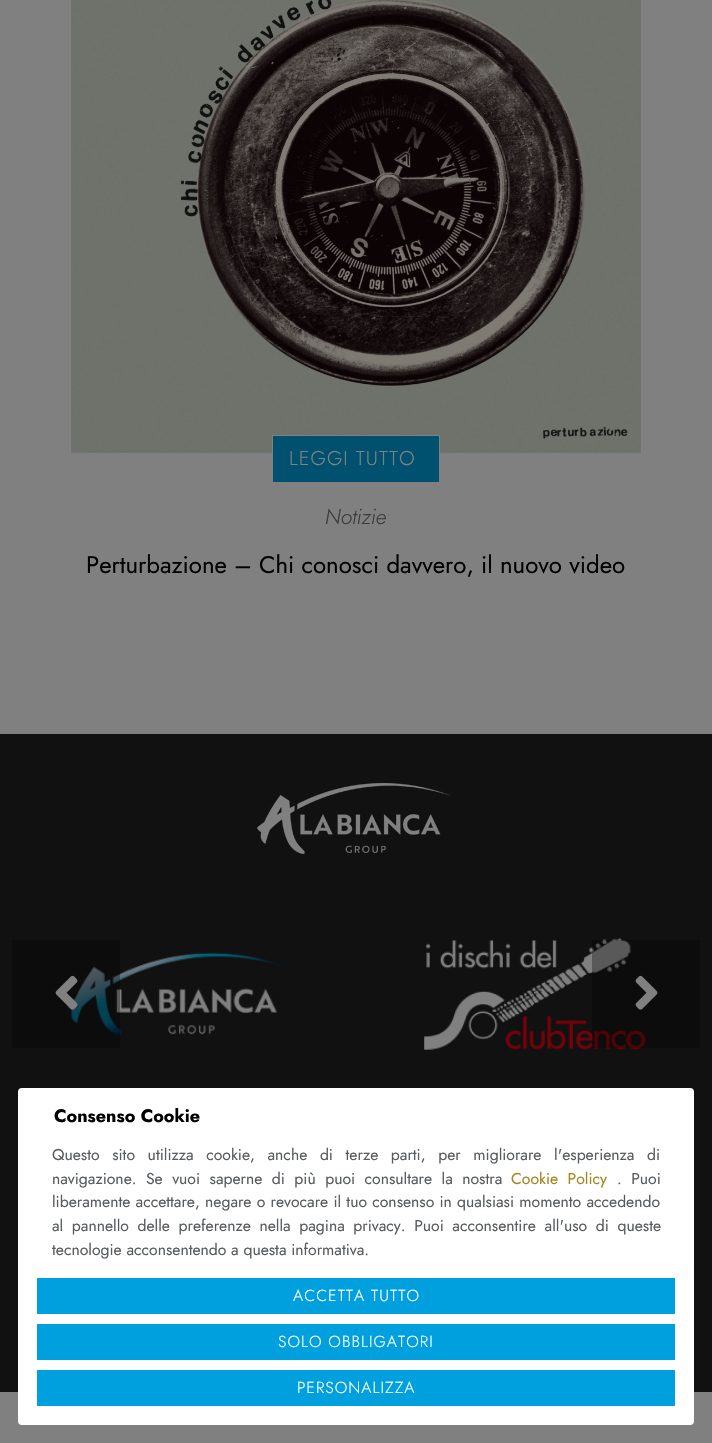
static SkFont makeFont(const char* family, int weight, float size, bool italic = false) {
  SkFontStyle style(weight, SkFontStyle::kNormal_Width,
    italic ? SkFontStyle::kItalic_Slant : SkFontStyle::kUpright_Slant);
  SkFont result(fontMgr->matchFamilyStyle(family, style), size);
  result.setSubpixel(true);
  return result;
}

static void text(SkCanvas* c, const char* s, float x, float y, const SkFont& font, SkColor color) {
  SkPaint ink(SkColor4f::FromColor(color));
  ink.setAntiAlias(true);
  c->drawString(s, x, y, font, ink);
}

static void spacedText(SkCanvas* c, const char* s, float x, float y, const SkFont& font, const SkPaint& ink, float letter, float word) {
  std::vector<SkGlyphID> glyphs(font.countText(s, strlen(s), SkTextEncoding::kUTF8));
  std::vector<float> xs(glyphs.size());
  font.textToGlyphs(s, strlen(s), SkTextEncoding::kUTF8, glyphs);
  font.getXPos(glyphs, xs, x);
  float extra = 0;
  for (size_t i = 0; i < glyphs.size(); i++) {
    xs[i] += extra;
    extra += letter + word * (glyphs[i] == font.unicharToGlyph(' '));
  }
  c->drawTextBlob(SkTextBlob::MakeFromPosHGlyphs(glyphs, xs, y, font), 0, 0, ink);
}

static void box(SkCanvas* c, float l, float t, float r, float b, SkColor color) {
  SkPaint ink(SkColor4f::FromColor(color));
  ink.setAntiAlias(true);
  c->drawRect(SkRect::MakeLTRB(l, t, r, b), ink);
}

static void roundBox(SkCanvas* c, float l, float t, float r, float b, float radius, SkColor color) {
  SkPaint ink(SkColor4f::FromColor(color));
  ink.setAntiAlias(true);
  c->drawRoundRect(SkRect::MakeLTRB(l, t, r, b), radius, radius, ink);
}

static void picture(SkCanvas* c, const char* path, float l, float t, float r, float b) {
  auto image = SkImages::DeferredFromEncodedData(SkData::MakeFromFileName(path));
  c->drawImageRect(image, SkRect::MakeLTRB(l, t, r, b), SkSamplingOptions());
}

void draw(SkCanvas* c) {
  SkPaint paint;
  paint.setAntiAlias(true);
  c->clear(0xff808080);
  picture(c, "img_01.png", 72, 0, 640, 452);
  paint.setStyle(SkPaint::kStroke_Style);
  paint.setStrokeWidth(1);
  paint.setColor(0xff6c7477);
  c->drawRect(SkRect::MakeLTRB(71.5f, -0.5f, 640.5f, 452.5f), paint);
  paint.setStyle(SkPaint::kFill_Style);
  paint.setColor(0xff005070);
  c->drawRect(SkRect::MakeLTRB(272.5f, 435.5f, 439.5f, 482.5f), paint);
  paint.setStyle(SkPaint::kStroke_Style);
  paint.setColor(0xff808080);
  c->drawRect(SkRect::MakeLTRB(272.5f, 435.5f, 439.5f, 482.5f), paint);
  SkFont face1 = makeFont("Jost", 300, 20);
  paint.setStyle(SkPaint::kFill_Style);
  spacedText(c, "LEGGI TUTTO", 289, 465, face1, paint, 1, 0);
  SkFont face2 = makeFont("Jost", 300, 21.5f, true);
  text(c, "Notizie", 325, 524, face2, 0xff3b3b3b);
  SkFont face3 = makeFont("Jost", 400, 24);
  text(c, "Perturbazione – Chi conosci davvero, il nuovo video", 86, 573, face3, 0xff000000);
  box(c, 0, 734, 712, 1392, 0xff111111);
  picture(c, "img_02.png", 257, 783, 451, 854);
  picture(c, "img_03.png", 12, 883, 344, 1105);
  picture(c, "img_04.png", 368, 883, 700, 1105);
  box(c, 12, 940, 120, 1048, 0x4d000000);
  picture(c, "img_05.png", 55, 975, 78, 1010);
  box(c, 592, 940, 700, 1048, 0x4d000000);
  picture(c, "img_06.png", 635, 975, 658, 1010);
  roundBox(c, 18, 1088, 694, 1425, 4, 0xffffffff);
  SkFont face4 = makeFont("Jost", 700, 18);
  text(c, "Consenso Cookie", 54, 1122, face4, 0xff000000);
  SkFont face5 = makeFont("Jost", 400, 15.75f);
  paint.setColor(0xff595c5f);
  spacedText(c, "Questo sito utilizza cookie, anche di terze parti, per migliorare l'esperienza di", 52, 1160, face5, paint, 0, 7.9f);
  spacedText(c, "navigazione. Se vuoi saperne di più puoi consultare la nostra", 52, 1184, face5, paint, 0, 4.75f);
  paint.setColor(0xffa6841e);
  spacedText(c, "Cookie Policy", 511, 1184, face5, paint, 0, 4.75f);
  paint.setColor(0xff595c5f);
  spacedText(c, ". Puoi", 617, 1184, face5, paint, 0, 4.75f);
  spacedText(c, "liberamente accettare, negare o revocare il tuo consenso in qualsiasi momento accedendo", 52, 1207, face5, paint, 0, 0.5f);
  spacedText(c, "al pannello delle preferenze nella pagina privacy. Puoi acconsentire all'uso di queste", 52, 1231, face5, paint, 0, 3.9f);
  text(c, "tecnologie acconsentendo a questa informativa.", 52, 1255, face5, 0xff595c5f);
  box(c, 37, 1278, 675, 1314, 0xff00a0df);
  SkFont face6 = makeFont("Jost", 300, 16);
  paint.setColor(0xffffffff);
  spacedText(c, "ACCETTA TUTTO", 293, 1301, face6, paint, 1, 0);
  box(c, 37, 1324, 675, 1360, 0xff00a0df);
  spacedText(c, "SOLO OBBLIGATORI", 278, 1347, face6, paint, 1, 0);
  box(c, 37, 1370, 675, 1406, 0xff00a0df);
  spacedText(c, "PERSONALIZZA", 297, 1393, face6, paint, 1, 0);
}
